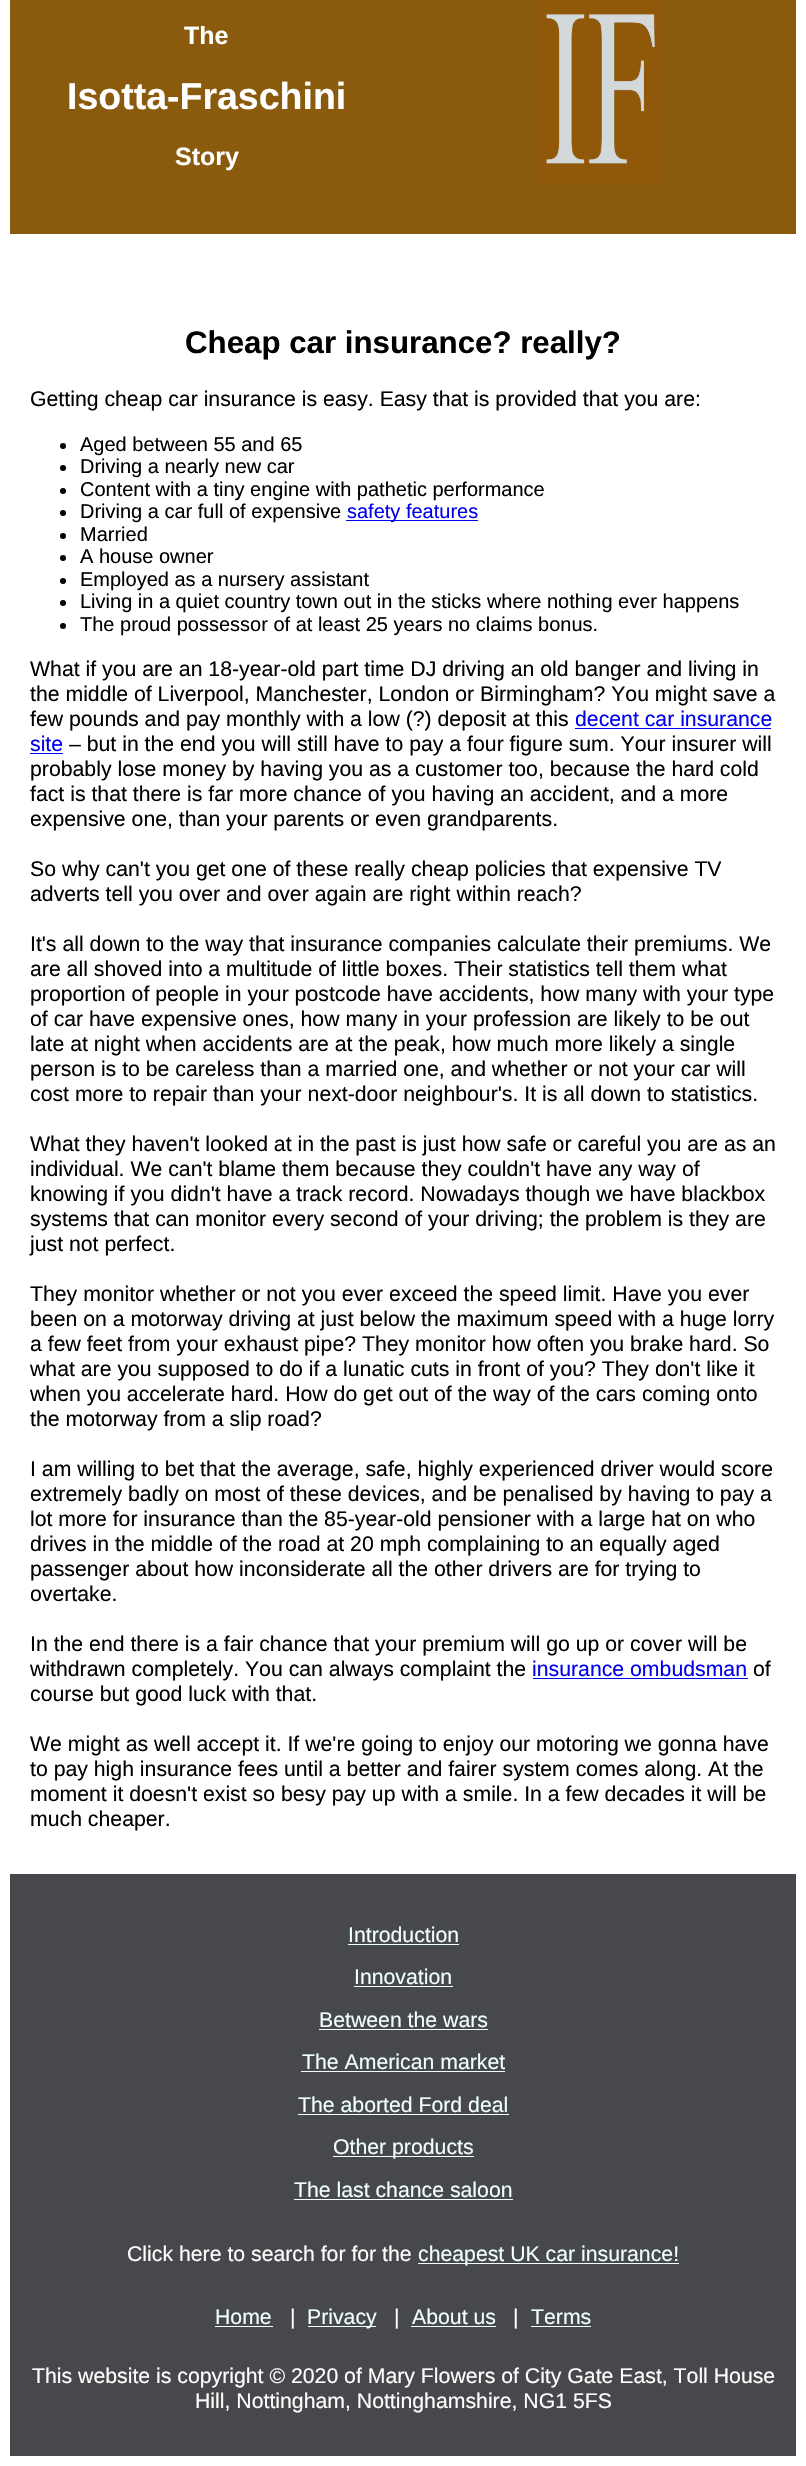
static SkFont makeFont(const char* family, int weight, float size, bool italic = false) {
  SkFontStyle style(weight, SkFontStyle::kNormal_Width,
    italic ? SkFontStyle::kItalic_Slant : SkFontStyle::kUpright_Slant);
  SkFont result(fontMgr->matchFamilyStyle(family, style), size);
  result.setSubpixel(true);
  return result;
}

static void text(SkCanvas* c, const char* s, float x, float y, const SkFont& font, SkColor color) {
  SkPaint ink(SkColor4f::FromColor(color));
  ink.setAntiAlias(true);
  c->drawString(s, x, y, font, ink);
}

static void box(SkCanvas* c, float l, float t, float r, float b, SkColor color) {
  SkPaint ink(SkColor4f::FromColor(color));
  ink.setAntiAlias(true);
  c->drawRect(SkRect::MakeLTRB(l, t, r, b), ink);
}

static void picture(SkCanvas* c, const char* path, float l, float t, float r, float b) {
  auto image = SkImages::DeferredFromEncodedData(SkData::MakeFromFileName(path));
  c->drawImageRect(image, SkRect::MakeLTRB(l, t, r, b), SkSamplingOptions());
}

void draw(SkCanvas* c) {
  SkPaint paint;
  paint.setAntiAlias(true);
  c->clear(0xffffffff);
  box(c, 10, 0, 796, 234, 0xff8b5b0d);
  picture(c, "img_01.png", 538, 0, 662, 184);
  SkFont face1 = makeFont("Liberation Sans", 700, 25);
  text(c, "The", 184, 44, face1, 0xffffffff);
  SkFont face2 = makeFont("Liberation Sans", 700, 37.5f);
  text(c, "Isotta-Fraschini", 67, 109, face2, 0xffffffff);
  text(c, "Story", 175, 165, face1, 0xffffffff);
  SkFont face3 = makeFont("Liberation Sans", 700, 31.25f);
  text(c, "Cheap car insurance? really?", 185, 353, face3, 0xff000000);
  SkFont face4 = makeFont("Liberation Sans", 400, 21.25f);
  text(c, "Getting cheap car insurance is easy. Easy that is provided that you are:", 30, 406, face4, 0xff000000);
  paint.setColor(0xff000000);
  c->drawCircle(63, 446, 3, paint);
  SkFont face5 = makeFont("Liberation Sans", 400, 20);
  text(c, "Aged between 55 and 65", 80, 451, face5, 0xff000000);
  c->drawCircle(63, 468, 3, paint);
  text(c, "Driving a nearly new car", 80, 473, face5, 0xff000000);
  c->drawCircle(63, 491, 3, paint);
  text(c, "Content with a tiny engine with pathetic performance", 80, 496, face5, 0xff000000);
  c->drawCircle(63, 513, 3, paint);
  text(c, "Driving a car full of expensive", 80, 518, face5, 0xff000000);
  box(c, 346, 520, 478, 521, 0xff0000ee);
  text(c, "safety features", 347, 518, face5, 0xff0000ee);
  c->drawCircle(63, 536, 3, paint);
  text(c, "Married", 80, 541, face5, 0xff000000);
  c->drawCircle(63, 558, 3, paint);
  text(c, "A house owner", 80, 563, face5, 0xff000000);
  c->drawCircle(63, 581, 3, paint);
  text(c, "Employed as a nursery assistant", 80, 586, face5, 0xff000000);
  c->drawCircle(63, 603, 3, paint);
  text(c, "Living in a quiet country town out in the sticks where nothing ever happens", 80, 608, face5, 0xff000000);
  c->drawCircle(63, 626, 3, paint);
  text(c, "The proud possessor of at least 25 years no claims bonus.", 80, 631, face5, 0xff000000);
  text(c, "What if you are an 18-year-old part time DJ driving an old banger and living in", 30, 676, face4, 0xff000000);
  text(c, "the middle of Liverpool, Manchester, London or Birmingham? You might save a", 30, 701, face4, 0xff000000);
  text(c, "few pounds and pay monthly with a low (?) deposit at this", 30, 726, face4, 0xff000000);
  text(c, "decent car insurance", 575, 726, face4, 0xff0000ee);
  box(c, 575, 728, 771, 729, 0xff0000ee);
  text(c, "site", 30, 751, face4, 0xff0000ee);
  box(c, 30, 753, 63, 754, 0xff0000ee);
  text(c, "– but in the end you will still have to pay a four figure sum. Your insurer will", 69, 751, face4, 0xff000000);
  text(c, "probably lose money by having you as a customer too, because the hard cold", 30, 776, face4, 0xff000000);
  text(c, "fact is that there is far more chance of you having an accident, and a more", 30, 801, face4, 0xff000000);
  text(c, "expensive one, than your parents or even grandparents.", 30, 826, face4, 0xff000000);
  text(c, "So why can't you get one of these really cheap policies that expensive TV", 30, 876, face4, 0xff000000);
  text(c, "adverts tell you over and over again are right within reach?", 30, 901, face4, 0xff000000);
  text(c, "It's all down to the way that insurance companies calculate their premiums. We", 30, 951, face4, 0xff000000);
  text(c, "are all shoved into a multitude of little boxes. Their statistics tell them what", 30, 976, face4, 0xff000000);
  text(c, "proportion of people in your postcode have accidents, how many with your type", 30, 1001, face4, 0xff000000);
  text(c, "of car have expensive ones, how many in your profession are likely to be out", 30, 1026, face4, 0xff000000);
  text(c, "late at night when accidents are at the peak, how much more likely a single", 30, 1051, face4, 0xff000000);
  text(c, "person is to be careless than a married one, and whether or not your car will", 30, 1076, face4, 0xff000000);
  text(c, "cost more to repair than your next-door neighbour's. It is all down to statistics.", 30, 1101, face4, 0xff000000);
  text(c, "What they haven't looked at in the past is just how safe or careful you are as an", 30, 1151, face4, 0xff000000);
  text(c, "individual. We can't blame them because they couldn't have any way of", 30, 1176, face4, 0xff000000);
  text(c, "knowing if you didn't have a track record. Nowadays though we have blackbox", 30, 1201, face4, 0xff000000);
  text(c, "systems that can monitor every second of your driving; the problem is they are", 30, 1226, face4, 0xff000000);
  text(c, "just not perfect.", 30, 1251, face4, 0xff000000);
  text(c, "They monitor whether or not you ever exceed the speed limit. Have you ever", 30, 1301, face4, 0xff000000);
  text(c, "been on a motorway driving at just below the maximum speed with a huge lorry", 30, 1326, face4, 0xff000000);
  text(c, "a few feet from your exhaust pipe? They monitor how often you brake hard. So", 30, 1351, face4, 0xff000000);
  text(c, "what are you supposed to do if a lunatic cuts in front of you? They don't like it", 30, 1376, face4, 0xff000000);
  text(c, "when you accelerate hard. How do get out of the way of the cars coming onto", 30, 1401, face4, 0xff000000);
  text(c, "the motorway from a slip road?", 30, 1426, face4, 0xff000000);
  text(c, "I am willing to bet that the average, safe, highly experienced driver would score", 30, 1476, face4, 0xff000000);
  text(c, "extremely badly on most of these devices, and be penalised by having to pay a", 30, 1501, face4, 0xff000000);
  text(c, "lot more for insurance than the 85-year-old pensioner with a large hat on who", 30, 1526, face4, 0xff000000);
  text(c, "drives in the middle of the road at 20 mph complaining to an equally aged", 30, 1551, face4, 0xff000000);
  text(c, "passenger about how inconsiderate all the other drivers are for trying to", 30, 1576, face4, 0xff000000);
  text(c, "overtake.", 30, 1601, face4, 0xff000000);
  text(c, "In the end there is a fair chance that your premium will go up or cover will be", 30, 1651, face4, 0xff000000);
  text(c, "withdrawn completely. You can always complaint the", 30, 1676, face4, 0xff000000);
  text(c, "insurance ombudsman", 532, 1676, face4, 0xff0000ee);
  box(c, 533, 1678, 748, 1679, 0xff0000ee);
  text(c, "of", 753, 1676, face4, 0xff000000);
  text(c, "course but good luck with that.", 30, 1701, face4, 0xff000000);
  text(c, "We might as well accept it. If we're going to enjoy our motoring we gonna have", 30, 1751, face4, 0xff000000);
  text(c, "to pay high insurance fees until a better and fairer system comes along. At the", 30, 1776, face4, 0xff000000);
  text(c, "moment it doesn't exist so besy pay up with a smile. In a few decades it will be", 30, 1801, face4, 0xff000000);
  text(c, "much cheaper.", 30, 1826, face4, 0xff000000);
  box(c, 10, 1874, 796, 2456, 0xff47484b);
  text(c, "Introduction", 348, 1942, face4, 0xfff0ffff);
  box(c, 348, 1944, 459, 1945, 0xfff0ffff);
  text(c, "Innovation", 354, 1984, face4, 0xfff0ffff);
  box(c, 354, 1986, 453, 1987, 0xfff0ffff);
  text(c, "Between the wars", 319, 2027, face4, 0xfff0ffff);
  box(c, 319, 2029, 488, 2030, 0xfff0ffff);
  text(c, "The American market", 302, 2069, face4, 0xfff0ffff);
  box(c, 301, 2071, 505, 2072, 0xfff0ffff);
  text(c, "The aborted Ford deal", 298, 2112, face4, 0xfff0ffff);
  box(c, 298, 2114, 509, 2115, 0xfff0ffff);
  box(c, 333, 2156, 474, 2157, 0xfff0ffff);
  text(c, "Other products", 333, 2154, face4, 0xfff0ffff);
  text(c, "The last chance saloon", 294, 2197, face4, 0xfff0ffff);
  box(c, 294, 2199, 513, 2200, 0xfff0ffff);
  text(c, "Click here to search for for the", 127, 2261, face4, 0xffffffff);
  box(c, 418, 2263, 679, 2264, 0xfff0ffff);
  text(c, "cheapest UK car insurance!", 418, 2261, face4, 0xfff0ffff);
  text(c, "Home", 215, 2324, face4, 0xfff0ffff);
  box(c, 215, 2326, 273, 2327, 0xfff0ffff);
  text(c, "|", 290, 2324, face4, 0xffffffff);
  box(c, 308, 2326, 376, 2327, 0xfff0ffff);
  text(c, "Privacy", 307, 2324, face4, 0xfff0ffff);
  text(c, "|", 394, 2324, face4, 0xffffffff);
  text(c, "About us", 412, 2324, face4, 0xfff0ffff);
  box(c, 411, 2326, 496, 2327, 0xfff0ffff);
  text(c, "|", 513, 2324, face4, 0xffffffff);
  text(c, "Terms", 531, 2324, face4, 0xfff0ffff);
  box(c, 531, 2326, 591, 2327, 0xfff0ffff);
  text(c, "This website is copyright © 2020 of Mary Flowers of City Gate East, Toll House", 32, 2383, face4, 0xffffffff);
  text(c, "Hill, Nottingham, Nottinghamshire, NG1 5FS", 195, 2408, face4, 0xffffffff);
}
